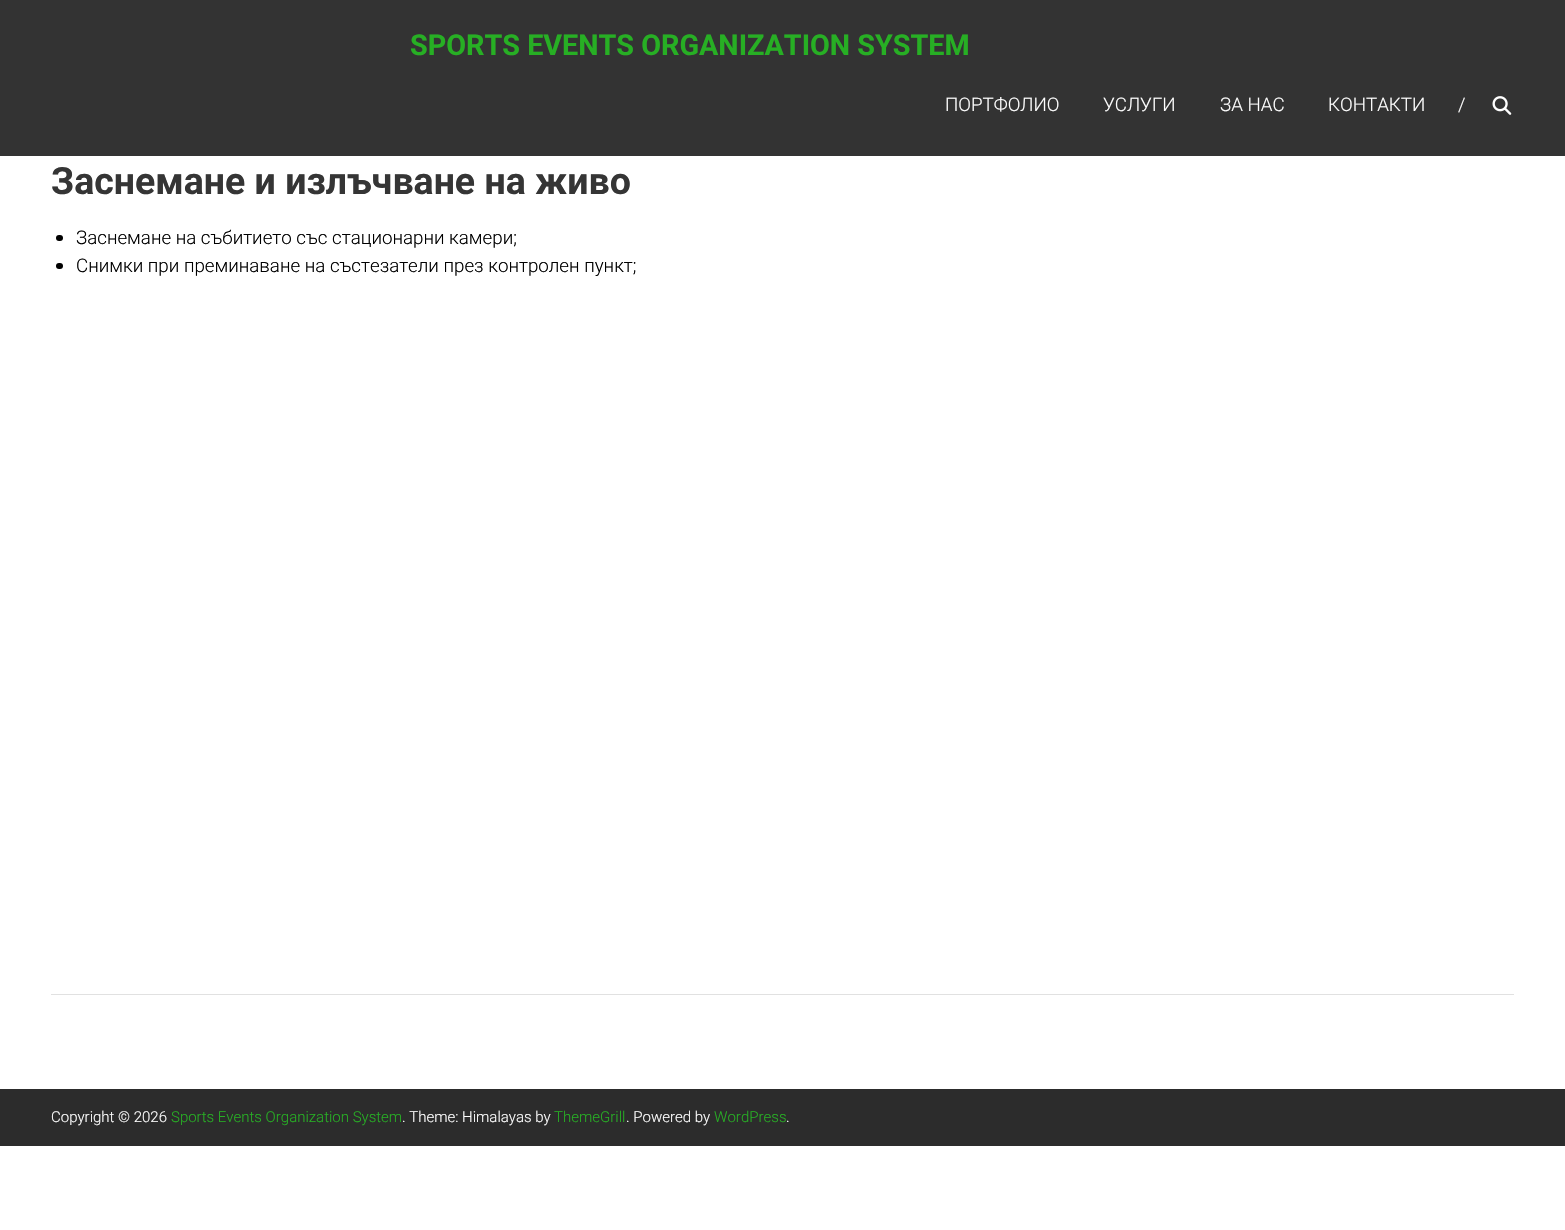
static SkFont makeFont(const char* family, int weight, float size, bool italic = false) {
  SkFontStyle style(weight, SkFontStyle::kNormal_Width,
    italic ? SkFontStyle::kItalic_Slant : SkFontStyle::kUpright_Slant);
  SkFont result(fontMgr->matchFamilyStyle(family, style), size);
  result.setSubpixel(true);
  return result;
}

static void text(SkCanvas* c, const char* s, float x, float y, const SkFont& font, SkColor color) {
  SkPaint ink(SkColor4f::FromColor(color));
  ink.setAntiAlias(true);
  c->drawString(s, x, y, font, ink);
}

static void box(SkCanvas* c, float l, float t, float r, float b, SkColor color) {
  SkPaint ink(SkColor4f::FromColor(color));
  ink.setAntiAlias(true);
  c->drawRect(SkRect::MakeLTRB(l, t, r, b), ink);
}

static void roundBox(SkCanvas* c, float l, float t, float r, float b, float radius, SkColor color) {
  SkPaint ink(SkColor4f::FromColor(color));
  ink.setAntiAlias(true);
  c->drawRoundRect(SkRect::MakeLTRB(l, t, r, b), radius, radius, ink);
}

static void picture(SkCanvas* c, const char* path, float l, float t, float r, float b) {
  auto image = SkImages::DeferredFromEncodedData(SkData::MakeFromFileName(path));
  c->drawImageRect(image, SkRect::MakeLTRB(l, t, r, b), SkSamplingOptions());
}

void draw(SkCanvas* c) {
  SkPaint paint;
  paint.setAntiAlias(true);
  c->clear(0xffffffff);
  box(c, 0, 0, 1565, 156, 0xff333333);
  SkFont face1 = makeFont("Roboto", 700, 28.75f);
  text(c, "SPORTS EVENTS ORGANIZATION SYSTEM", 410, 55, face1, 0xff27af24);
  SkFont face2 = makeFont("Roboto", 300, 18.75f);
  text(c, "ПОРТФОЛИО", 945, 111, face2, 0xffffffff);
  text(c, "УСЛУГИ", 1103, 111, face2, 0xffffffff);
  text(c, "ЗА НАС", 1220, 111, face2, 0xffffffff);
  text(c, "КОНТАКТИ", 1328, 111, face2, 0xffffffff);
  text(c, "/", 1458, 111, face2, 0xffffffff);
  picture(c, "img_01.png", 1492, 96, 1512, 115);
  box(c, 51, 994, 1514, 995, 0xffe1e1e1);
  SkFont face3 = makeFont("Roboto", 700, 37.5f);
  text(c, "Заснемане и излъчване на живо", 51, 194, face3, 0xff353535);
  roundBox(c, 56, 235, 63, 241, 3, 0xff000000);
  text(c, "Заснемане на събитието със стационарни камери;", 76, 244, face2, 0xff000000);
  roundBox(c, 56, 263, 63, 269, 3, 0xff000000);
  text(c, "Снимки при преминаване на състезатели през контролен пункт;", 76, 272, face2, 0xff000000);
  box(c, 0, 1089, 1565, 1146, 0xff2c2c2c);
  SkFont face4 = makeFont("Roboto", 300, 15);
  text(c, "Copyright © 2026", 51, 1122, face4, 0xffffffff);
  text(c, "Sports Events Organization System", 171, 1122, face4, 0xff27af24);
  text(c, ". Theme: Himalayas by", 402, 1122, face4, 0xffffffff);
  text(c, "ThemeGrill", 554, 1122, face4, 0xff27af24);
  text(c, ". Powered by", 626, 1122, face4, 0xffffffff);
  text(c, "WordPress", 714, 1122, face4, 0xff27af24);
  text(c, ".", 786, 1122, face4, 0xffffffff);
}
